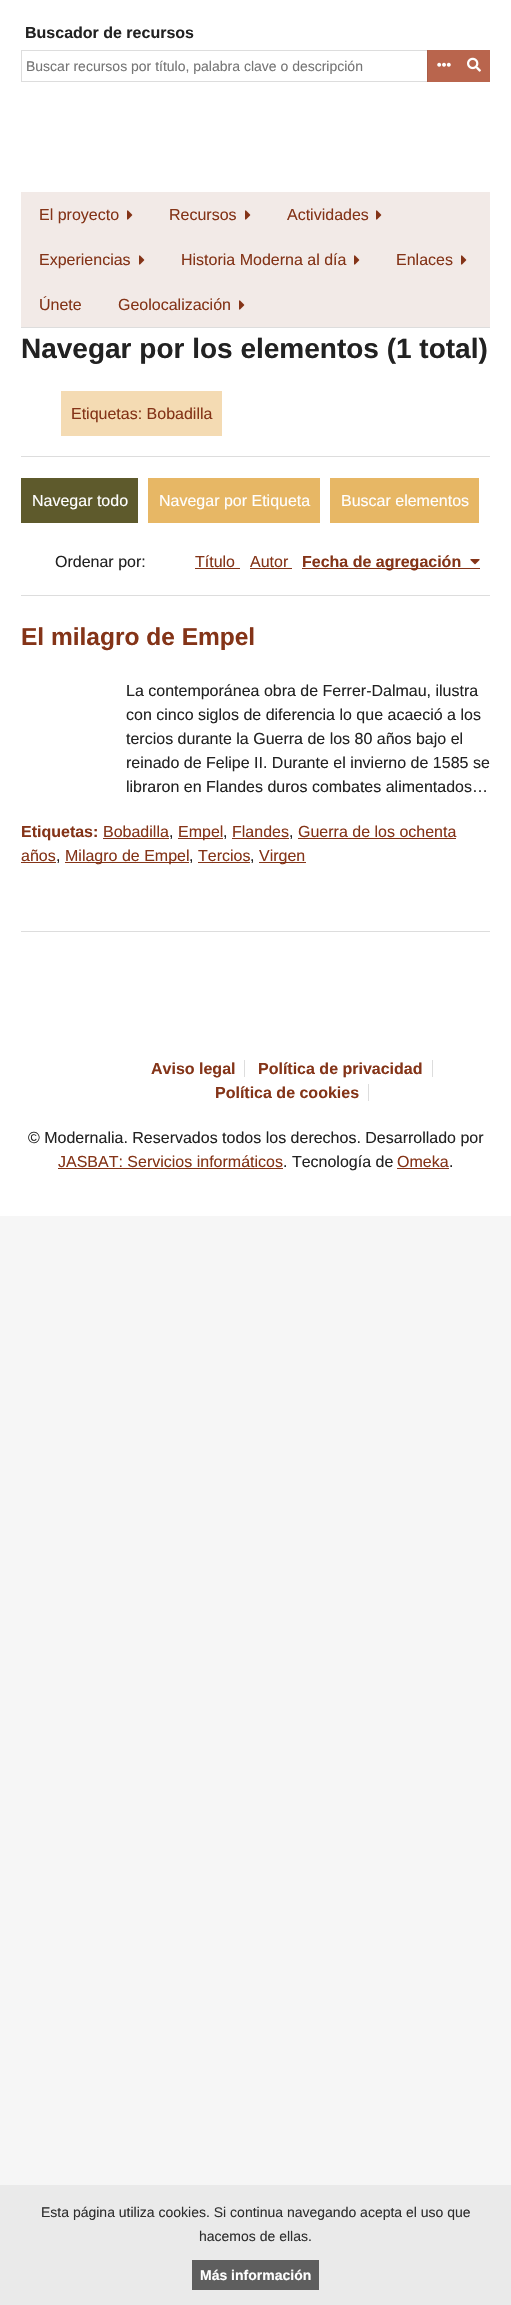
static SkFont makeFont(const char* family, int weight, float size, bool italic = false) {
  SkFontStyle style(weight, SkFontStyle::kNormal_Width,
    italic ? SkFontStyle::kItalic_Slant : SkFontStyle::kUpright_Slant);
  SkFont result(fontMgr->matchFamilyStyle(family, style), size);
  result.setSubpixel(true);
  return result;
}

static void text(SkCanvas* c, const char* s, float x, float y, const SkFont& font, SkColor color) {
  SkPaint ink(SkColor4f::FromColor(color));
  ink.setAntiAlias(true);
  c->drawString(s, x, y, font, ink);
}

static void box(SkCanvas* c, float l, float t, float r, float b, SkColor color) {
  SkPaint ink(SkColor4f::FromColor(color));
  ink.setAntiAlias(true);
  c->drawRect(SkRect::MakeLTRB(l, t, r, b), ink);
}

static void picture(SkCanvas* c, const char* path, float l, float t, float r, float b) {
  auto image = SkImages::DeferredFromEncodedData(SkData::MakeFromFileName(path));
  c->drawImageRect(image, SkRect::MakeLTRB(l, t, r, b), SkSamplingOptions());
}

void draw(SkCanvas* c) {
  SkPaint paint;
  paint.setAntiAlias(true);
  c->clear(0xfff6f6f6);
  box(c, 0, 0, 511, 1216, 0xffffffff);
  SkFont face1 = makeFont("Liberation Sans", 700, 16);
  text(c, "Buscador de recursos", 25, 38, face1, 0xff222222);
  paint.setStyle(SkPaint::kStroke_Style);
  paint.setStrokeWidth(1);
  paint.setColor(0xffdddddd);
  c->drawRect(SkRect::MakeLTRB(21.5f, 50.5f, 489.5f, 81.5f), paint);
  box(c, 428, 50, 490, 82, 0xffb9654d);
  box(c, 427, 50, 428, 82, 0xffaa5d47);
  picture(c, "img_01.png", 437, 62, 451, 67);
  SkFont face2 = makeFont("Liberation Sans", 400, 14);
  text(c, "Buscar recursos por título, palabra clave o descripción", 26, 71, face2, 0xff757575);
  picture(c, "img_02.png", 467, 57, 481, 72);
  box(c, 21, 192, 490, 327, 0xfff2eae7);
  SkFont face3 = makeFont("Liberation Sans", 400, 16);
  text(c, "El proyecto", 39, 220, face3, 0xff843418);
  picture(c, "img_03.png", 127, 210, 133, 220);
  text(c, "Recursos", 169, 220, face3, 0xff843418);
  picture(c, "img_03.png", 245, 210, 251, 220);
  text(c, "Actividades", 287, 220, face3, 0xff843418);
  picture(c, "img_03.png", 376, 210, 382, 220);
  text(c, "Experiencias", 39, 265, face3, 0xff843418);
  picture(c, "img_03.png", 139, 255, 145, 265);
  text(c, "Historia Moderna al día", 181, 265, face3, 0xff843418);
  picture(c, "img_03.png", 354, 255, 360, 265);
  text(c, "Enlaces", 396, 265, face3, 0xff843418);
  picture(c, "img_03.png", 461, 255, 467, 265);
  text(c, "Únete", 39, 310, face3, 0xff843418);
  text(c, "Geolocalización", 118, 310, face3, 0xff843418);
  picture(c, "img_03.png", 239, 300, 245, 310);
  box(c, 21, 327, 490, 328, 0xffdddddd);
  box(c, 21, 931, 490, 932, 0xffdddddd);
  SkFont face4 = makeFont("Liberation Sans", 700, 28);
  text(c, "Navegar por los elementos (1 total)", 21, 358, face4, 0xff222222);
  box(c, 21, 456, 490, 457, 0xffdddddd);
  box(c, 61, 391, 222, 436, 0xfff4dbb3);
  text(c, "Etiquetas: Bobadilla", 71, 419, face3, 0xff843418);
  box(c, 21, 478, 138, 523, 0xff5e5a2c);
  text(c, "Navegar todo", 32, 506, face3, 0xffffffff);
  box(c, 148, 478, 320, 523, 0xffe7b765);
  text(c, "Navegar por Etiqueta", 159, 506, face3, 0xffffffff);
  box(c, 330, 478, 479, 523, 0xffe7b765);
  text(c, "Buscar elementos", 341, 506, face3, 0xffffffff);
  text(c, "Ordenar por:", 55, 567, face3, 0xff222222);
  text(c, "Título", 195, 567, face3, 0xff843418);
  box(c, 195, 568, 240, 569, 0xff843418);
  text(c, "Autor", 250, 567, face3, 0xff843418);
  box(c, 250, 568, 292, 569, 0xff843418);
  box(c, 302, 568, 480, 569, 0xff843418);
  text(c, "Fecha de agregación", 302, 567, face1, 0xff843418);
  picture(c, "img_04.png", 470, 559, 480, 565);
  box(c, 21, 595, 490, 596, 0xffdddddd);
  SkFont face5 = makeFont("Liberation Sans", 700, 24.5f);
  text(c, "El milagro de Empel", 21, 645, face5, 0xff843418);
  text(c, "La contemporánea obra de Ferrer-Dalmau, ilustra", 126, 696, face3, 0xff222222);
  text(c, "con cinco siglos de diferencia lo que acaeció a los", 126, 720, face3, 0xff222222);
  text(c, "tercios durante la Guerra de los 80 años bajo el", 126, 744, face3, 0xff222222);
  text(c, "reinado de Felipe II. Durante el invierno de 1585 se", 126, 768, face3, 0xff222222);
  text(c, "libraron en Flandes duros combates alimentados…", 126, 792, face3, 0xff222222);
  text(c, "Etiquetas:", 21, 837, face1, 0xff843418);
  text(c, "Bobadilla", 103, 837, face3, 0xff843418);
  box(c, 103, 838, 169, 839, 0xff843418);
  text(c, ",", 169, 837, face3, 0xff222222);
  box(c, 178, 838, 223, 839, 0xff843418);
  text(c, "Empel", 178, 837, face3, 0xff843418);
  text(c, ",", 223, 837, face3, 0xff222222);
  text(c, "Flandes", 232, 837, face3, 0xff843418);
  box(c, 232, 838, 289, 839, 0xff843418);
  text(c, ",", 289, 837, face3, 0xff222222);
  text(c, "Guerra de los ochenta", 298, 837, face3, 0xff843418);
  box(c, 298, 838, 456, 839, 0xff843418);
  text(c, "años", 21, 861, face3, 0xff843418);
  box(c, 21, 862, 56, 863, 0xff843418);
  text(c, ",", 56, 861, face3, 0xff222222);
  box(c, 65, 862, 189, 863, 0xff843418);
  text(c, "Milagro de Empel", 65, 861, face3, 0xff843418);
  text(c, ",", 189, 861, face3, 0xff222222);
  text(c, "Tercios", 198, 861, face3, 0xff843418);
  box(c, 198, 862, 250, 863, 0xff843418);
  text(c, ",", 250, 861, face3, 0xff222222);
  box(c, 259, 862, 306, 863, 0xff843418);
  text(c, "Virgen", 259, 861, face3, 0xff843418);
  text(c, "Aviso legal", 151, 1074, face1, 0xff843418);
  box(c, 244, 1060, 245, 1077, 0xffdddddd);
  text(c, "Política de privacidad", 258, 1074, face1, 0xff843418);
  box(c, 432, 1060, 433, 1077, 0xffdddddd);
  text(c, "Política de cookies", 215, 1098, face1, 0xff843418);
  box(c, 368, 1084, 369, 1101, 0xffdddddd);
  text(c, "© Modernalia. Reservados todos los derechos. Desarrollado por", 28, 1143, face3, 0xff222222);
  text(c, "JASBAT: Servicios informáticos", 58, 1167, face3, 0xff843418);
  box(c, 58, 1168, 283, 1169, 0xff843418);
  text(c, ". Tecnología de", 283, 1167, face3, 0xff222222);
  text(c, "Omeka", 397, 1167, face3, 0xff843418);
  box(c, 397, 1168, 449, 1169, 0xff843418);
  text(c, ".", 449, 1167, face3, 0xff222222);
  box(c, 0, 2185, 511, 2305, 0xffeaeaea);
  text(c, "Esta página utiliza cookies. Si continua navegando acepta el uso que", 41, 2217, face2, 0xff2f2f2f);
  text(c, "hacemos de ellas.", 199, 2241, face2, 0xff2f2f2f);
  box(c, 192, 2260, 319, 2290, 0xff5e5e5e);
  SkFont face6 = makeFont("Liberation Sans", 700, 14);
  text(c, "Más información", 200, 2280, face6, 0xffffffff);
}
